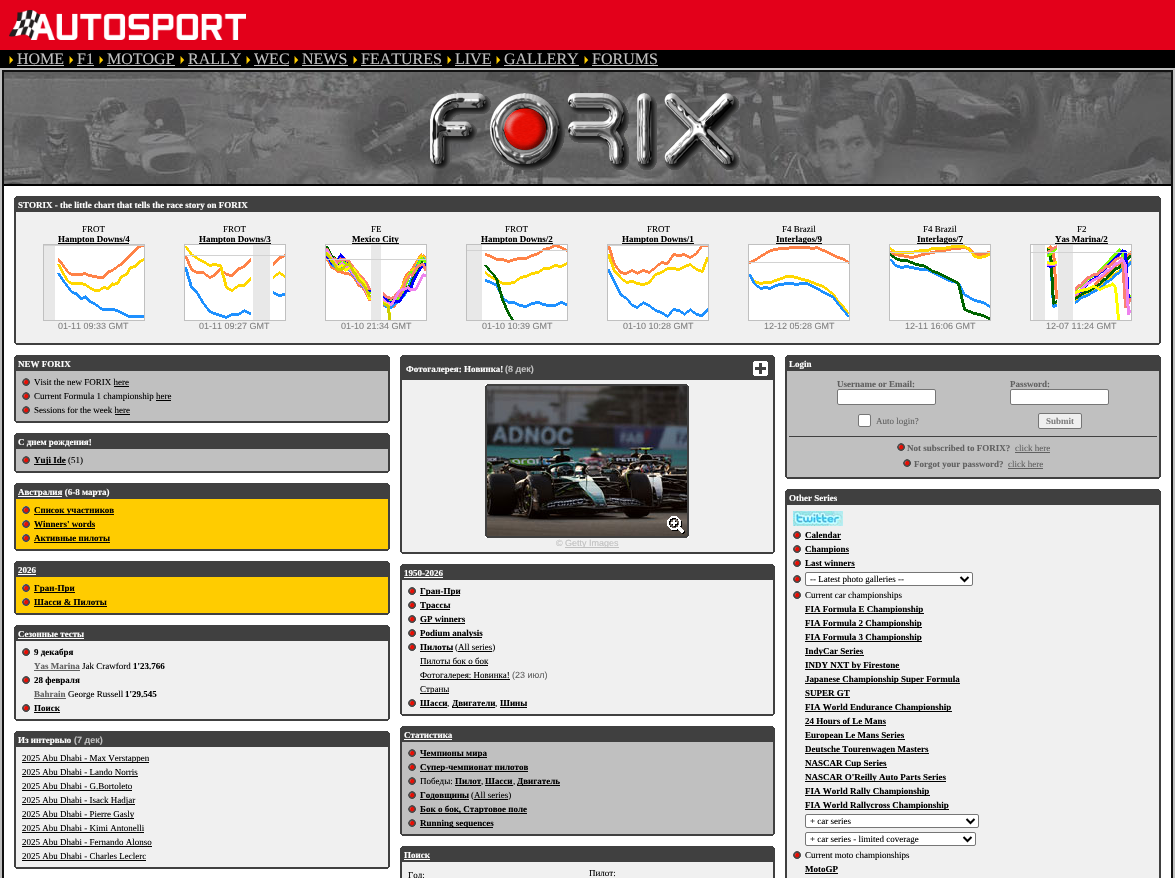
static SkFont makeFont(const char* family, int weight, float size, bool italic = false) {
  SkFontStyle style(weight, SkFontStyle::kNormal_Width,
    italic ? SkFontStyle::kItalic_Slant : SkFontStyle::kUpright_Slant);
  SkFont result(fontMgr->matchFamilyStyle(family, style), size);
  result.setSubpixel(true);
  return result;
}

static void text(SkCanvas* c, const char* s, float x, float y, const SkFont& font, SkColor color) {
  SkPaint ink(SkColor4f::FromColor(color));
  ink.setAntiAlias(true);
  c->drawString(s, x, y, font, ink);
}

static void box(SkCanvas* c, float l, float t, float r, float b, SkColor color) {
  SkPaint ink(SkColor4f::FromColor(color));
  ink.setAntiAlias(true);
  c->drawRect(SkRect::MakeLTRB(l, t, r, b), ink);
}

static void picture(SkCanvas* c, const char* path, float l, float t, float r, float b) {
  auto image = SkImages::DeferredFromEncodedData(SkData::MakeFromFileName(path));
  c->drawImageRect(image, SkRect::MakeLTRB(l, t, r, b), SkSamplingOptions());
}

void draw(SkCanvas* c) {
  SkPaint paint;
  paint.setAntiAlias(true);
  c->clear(0xffe3001a);
  picture(c, "img_01.png", 9, 10, 246, 40);
  box(c, 0, 50, 1175, 68, 0xff000000);
  picture(c, "img_02.png", 9, 56, 14, 64);
  SkFont face1 = makeFont("Liberation Serif", 400, 16);
  text(c, "HOME", 17, 64, face1, 0xffc0c0c0);
  box(c, 17, 65, 64, 66, 0xffc0c0c0);
  picture(c, "img_02.png", 69, 56, 74, 64);
  text(c, "F1", 77, 64, face1, 0xffc0c0c0);
  box(c, 77, 65, 94, 66, 0xffc0c0c0);
  picture(c, "img_02.png", 99, 56, 104, 64);
  text(c, "MOTOGP", 107, 64, face1, 0xffc0c0c0);
  box(c, 107, 65, 175, 66, 0xffc0c0c0);
  picture(c, "img_02.png", 180, 56, 185, 64);
  text(c, "RALLY", 188, 64, face1, 0xffc0c0c0);
  box(c, 188, 65, 241, 66, 0xffc0c0c0);
  picture(c, "img_02.png", 246, 56, 251, 64);
  text(c, "WEC", 254, 64, face1, 0xffc0c0c0);
  box(c, 254, 65, 289, 66, 0xffc0c0c0);
  picture(c, "img_02.png", 294, 56, 299, 64);
  text(c, "NEWS", 302, 64, face1, 0xffc0c0c0);
  box(c, 302, 65, 348, 66, 0xffc0c0c0);
  picture(c, "img_02.png", 353, 56, 358, 64);
  text(c, "FEATURES", 361, 64, face1, 0xffc0c0c0);
  box(c, 361, 65, 442, 66, 0xffc0c0c0);
  picture(c, "img_02.png", 447, 56, 452, 64);
  text(c, "LIVE", 455, 64, face1, 0xffc0c0c0);
  box(c, 455, 65, 491, 66, 0xffc0c0c0);
  picture(c, "img_02.png", 496, 56, 501, 64);
  text(c, "GALLERY", 504, 64, face1, 0xffc0c0c0);
  box(c, 504, 65, 579, 66, 0xffc0c0c0);
  picture(c, "img_02.png", 584, 56, 589, 64);
  text(c, "FORUMS", 592, 64, face1, 0xffc0c0c0);
  box(c, 592, 65, 658, 66, 0xffc0c0c0);
  box(c, 0, 68, 1175, 878, 0xffc0c0c0);
  box(c, 4, 186, 1171, 878, 0xffffffff);
  paint.setStyle(SkPaint::kStroke_Style);
  paint.setStrokeWidth(1);
  paint.setColor(0xff111111);
  c->drawRect(SkRect::MakeLTRB(2.5f, 70.5f, 1172.5f, 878.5f), paint);
  c->drawRect(SkRect::MakeLTRB(3.5f, 71.5f, 1171.5f, 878.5f), paint);
  picture(c, "img_03.png", 4, 72, 1171, 184);
  picture(c, "img_04.png", 430, 93, 739, 171);
  box(c, 4, 184, 1171, 186, 0xff000000);
  box(c, 14, 196, 1161, 198, 0xff404040);
  picture(c, "img_05.png", 14, 196, 16, 198);
  picture(c, "img_06.png", 1159, 196, 1161, 198);
  box(c, 14, 198, 16, 343, 0xff404040);
  box(c, 16, 198, 1159, 212, 0xff404040);
  SkFont face2 = makeFont("Liberation Serif", 700, 9);
  text(c, "STORIX - the little chart that tells the race story on FORIX", 18, 208, face2, 0xffffffff);
  box(c, 16, 212, 1159, 343, 0xfff0f0f0);
  SkFont face3 = makeFont("Liberation Serif", 400, 9);
  text(c, "FROT", 82, 232, face3, 0xff000000);
  box(c, 58, 243, 129, 244, 0xff000000);
  text(c, "Hampton Downs/4", 58, 242, face2, 0xff000000);
  paint.setColor(0xffc0c0c0);
  c->drawRect(SkRect::MakeLTRB(43.5f, 244.5f, 144.5f, 320.5f), paint);
  picture(c, "img_07.png", 44, 245, 144, 320);
  SkFont face4 = makeFont("Liberation Sans", 400, 9);
  text(c, "01-11 09:33 GMT", 58, 329, face4, 0xff808080);
  text(c, "FROT", 223, 232, face3, 0xff000000);
  box(c, 199, 243, 271, 244, 0xff000000);
  text(c, "Hampton Downs/3", 199, 242, face2, 0xff000000);
  c->drawRect(SkRect::MakeLTRB(184.5f, 244.5f, 285.5f, 320.5f), paint);
  picture(c, "img_08.png", 185, 245, 285, 320);
  text(c, "01-11 09:27 GMT", 199, 329, face4, 0xff808080);
  text(c, "FE", 371, 232, face3, 0xff000000);
  box(c, 352, 243, 399, 244, 0xff000000);
  text(c, "Mexico City", 352, 242, face2, 0xff000000);
  c->drawRect(SkRect::MakeLTRB(325.5f, 244.5f, 426.5f, 320.5f), paint);
  picture(c, "img_09.png", 326, 245, 426, 320);
  text(c, "01-10 21:34 GMT", 341, 329, face4, 0xff808080);
  text(c, "FROT", 505, 232, face3, 0xff000000);
  box(c, 481, 243, 553, 244, 0xff000000);
  text(c, "Hampton Downs/2", 481, 242, face2, 0xff000000);
  c->drawRect(SkRect::MakeLTRB(466.5f, 244.5f, 567.5f, 320.5f), paint);
  picture(c, "img_10.png", 467, 245, 567, 320);
  text(c, "01-10 10:39 GMT", 482, 329, face4, 0xff808080);
  text(c, "FROT", 647, 232, face3, 0xff000000);
  box(c, 622, 243, 694, 244, 0xff000000);
  text(c, "Hampton Downs/1", 622, 242, face2, 0xff000000);
  c->drawRect(SkRect::MakeLTRB(607.5f, 244.5f, 708.5f, 320.5f), paint);
  picture(c, "img_11.png", 608, 245, 708, 320);
  text(c, "01-10 10:28 GMT", 623, 329, face4, 0xff808080);
  text(c, "F4 Brazil", 782, 232, face3, 0xff000000);
  box(c, 776, 243, 822, 244, 0xff000000);
  text(c, "Interlagos/9", 776, 242, face2, 0xff000000);
  c->drawRect(SkRect::MakeLTRB(748.5f, 244.5f, 849.5f, 320.5f), paint);
  picture(c, "img_12.png", 749, 245, 849, 320);
  text(c, "12-12 05:28 GMT", 764, 329, face4, 0xff808080);
  text(c, "F4 Brazil", 923, 232, face3, 0xff000000);
  box(c, 917, 243, 963, 244, 0xff000000);
  text(c, "Interlagos/7", 917, 242, face2, 0xff000000);
  c->drawRect(SkRect::MakeLTRB(889.5f, 244.5f, 990.5f, 320.5f), paint);
  picture(c, "img_13.png", 890, 245, 990, 320);
  text(c, "12-11 16:06 GMT", 905, 329, face4, 0xff808080);
  text(c, "F2", 1077, 232, face3, 0xff000000);
  text(c, "Yas Marina/2", 1055, 242, face2, 0xff000000);
  box(c, 1055, 243, 1108, 244, 0xff000000);
  c->drawRect(SkRect::MakeLTRB(1030.5f, 244.5f, 1131.5f, 320.5f), paint);
  picture(c, "img_14.png", 1031, 245, 1131, 320);
  text(c, "12-07 11:24 GMT", 1046, 329, face4, 0xff808080);
  box(c, 1159, 198, 1161, 343, 0xff404040);
  box(c, 14, 343, 1161, 345, 0xff404040);
  picture(c, "img_15.png", 14, 343, 16, 345);
  picture(c, "img_16.png", 1159, 343, 1161, 345);
  box(c, 14, 355, 390, 357, 0xff404040);
  picture(c, "img_05.png", 14, 355, 16, 357);
  picture(c, "img_06.png", 388, 355, 390, 357);
  box(c, 14, 357, 16, 421, 0xff404040);
  box(c, 16, 357, 388, 371, 0xff404040);
  text(c, "NEW FORIX", 18, 367, face2, 0xffffffff);
  box(c, 16, 371, 388, 421, 0xffc0c0c0);
  picture(c, "img_17.png", 22, 378, 30, 386);
  text(c, "Visit the new FORIX here", 34, 385, face3, 0xff000000);
  box(c, 114, 386, 129, 387, 0xff000000);
  picture(c, "img_17.png", 22, 392, 30, 400);
  text(c, "Current Formula 1 championship here", 34, 399, face3, 0xff000000);
  box(c, 156, 400, 171, 401, 0xff000000);
  picture(c, "img_17.png", 22, 406, 30, 414);
  text(c, "Sessions for the week here", 34, 413, face3, 0xff000000);
  box(c, 115, 414, 130, 415, 0xff000000);
  box(c, 388, 357, 390, 421, 0xff404040);
  box(c, 14, 421, 390, 423, 0xff404040);
  picture(c, "img_15.png", 14, 421, 16, 423);
  picture(c, "img_16.png", 388, 421, 390, 423);
  box(c, 14, 433, 390, 435, 0xff404040);
  picture(c, "img_05.png", 14, 433, 16, 435);
  picture(c, "img_06.png", 388, 433, 390, 435);
  box(c, 14, 435, 16, 471, 0xff404040);
  box(c, 16, 435, 388, 449, 0xff404040);
  text(c, "С днем рождения!", 18, 445, face2, 0xffffffff);
  box(c, 16, 449, 388, 471, 0xffc0c0c0);
  picture(c, "img_17.png", 22, 456, 30, 464);
  box(c, 34, 464, 66, 465, 0xff000000);
  text(c, "Yuji Ide", 34, 463, face2, 0xff000000);
  text(c, "(51)", 68, 463, face3, 0xff000000);
  box(c, 388, 435, 390, 471, 0xff404040);
  box(c, 14, 471, 390, 473, 0xff404040);
  picture(c, "img_15.png", 14, 471, 16, 473);
  picture(c, "img_16.png", 388, 471, 390, 473);
  box(c, 14, 483, 390, 485, 0xff404040);
  picture(c, "img_05.png", 14, 483, 16, 485);
  picture(c, "img_06.png", 388, 483, 390, 485);
  box(c, 14, 485, 16, 549, 0xff404040);
  box(c, 16, 485, 388, 499, 0xff404040);
  box(c, 18, 496, 62, 497, 0xffffffff);
  text(c, "Австралия (6-8 марта)", 18, 495, face2, 0xffffffff);
  box(c, 16, 499, 388, 549, 0xffffcc00);
  picture(c, "img_18.png", 22, 506, 30, 514);
  box(c, 34, 514, 114, 515, 0xff000000);
  text(c, "Список участников", 34, 513, face2, 0xff000000);
  picture(c, "img_18.png", 22, 520, 30, 528);
  text(c, "Winners' words", 34, 527, face2, 0xff000000);
  box(c, 34, 528, 95, 529, 0xff000000);
  picture(c, "img_18.png", 22, 534, 30, 542);
  text(c, "Активные пилоты", 34, 541, face2, 0xff000000);
  box(c, 34, 542, 110, 543, 0xff000000);
  box(c, 388, 485, 390, 549, 0xff404040);
  box(c, 14, 549, 390, 551, 0xff404040);
  picture(c, "img_15.png", 14, 549, 16, 551);
  picture(c, "img_16.png", 388, 549, 390, 551);
  box(c, 14, 561, 390, 563, 0xff404040);
  picture(c, "img_05.png", 14, 561, 16, 563);
  picture(c, "img_06.png", 388, 561, 390, 563);
  box(c, 14, 563, 16, 613, 0xff404040);
  box(c, 16, 563, 388, 577, 0xff404040);
  text(c, "2026", 18, 573, face2, 0xffffffff);
  box(c, 18, 574, 36, 575, 0xffffffff);
  box(c, 16, 577, 388, 613, 0xffffcc00);
  picture(c, "img_18.png", 22, 584, 30, 592);
  box(c, 34, 592, 75, 593, 0xff000000);
  text(c, "Гран-При", 34, 591, face2, 0xff000000);
  picture(c, "img_18.png", 22, 598, 30, 606);
  text(c, "Шасси & Пилоты", 34, 605, face2, 0xff000000);
  box(c, 34, 606, 107, 607, 0xff000000);
  box(c, 388, 563, 390, 613, 0xff404040);
  box(c, 14, 613, 390, 615, 0xff404040);
  picture(c, "img_15.png", 14, 613, 16, 615);
  picture(c, "img_16.png", 388, 613, 390, 615);
  box(c, 14, 625, 390, 627, 0xff404040);
  picture(c, "img_05.png", 14, 625, 16, 627);
  picture(c, "img_06.png", 388, 625, 390, 627);
  box(c, 14, 627, 16, 719, 0xff404040);
  box(c, 16, 627, 388, 641, 0xff404040);
  text(c, "Сезонные тесты", 18, 637, face2, 0xffffffff);
  box(c, 18, 638, 84, 639, 0xffffffff);
  box(c, 16, 641, 388, 719, 0xfff0f0f0);
  picture(c, "img_19.png", 22, 648, 30, 656);
  text(c, "9 декабря", 34, 655, face2, 0xff000000);
  text(c, "Yas Marina", 34, 669, face2, 0xff606060);
  box(c, 34, 670, 80, 671, 0xff606060);
  text(c, "Jak Crawford", 82, 669, face3, 0xff000000);
  text(c, "1'23.766", 133, 669, face2, 0xff000000);
  picture(c, "img_19.png", 22, 676, 30, 684);
  text(c, "28 февраля", 34, 683, face2, 0xff000000);
  text(c, "Bahrain", 34, 697, face2, 0xff606060);
  box(c, 34, 698, 66, 699, 0xff606060);
  text(c, "George Russell", 68, 697, face3, 0xff000000);
  text(c, "1'29.545", 125, 697, face2, 0xff000000);
  picture(c, "img_19.png", 22, 704, 30, 712);
  text(c, "Поиск", 34, 711, face2, 0xff000000);
  box(c, 34, 712, 60, 713, 0xff000000);
  box(c, 388, 627, 390, 719, 0xff404040);
  box(c, 14, 719, 390, 721, 0xff404040);
  picture(c, "img_15.png", 14, 719, 16, 721);
  picture(c, "img_16.png", 388, 719, 390, 721);
  box(c, 14, 731, 390, 733, 0xff404040);
  picture(c, "img_05.png", 14, 731, 16, 733);
  picture(c, "img_06.png", 388, 731, 390, 733);
  box(c, 14, 733, 16, 867, 0xff404040);
  box(c, 16, 733, 388, 747, 0xff404040);
  text(c, "Из интервью", 18, 743, face2, 0xffffffff);
  SkFont face5 = makeFont("Liberation Sans", 700, 9);
  text(c, "(7 дек)", 74, 743, face5, 0xffc0c0c0);
  box(c, 16, 747, 388, 867, 0xfff0f0f0);
  box(c, 22, 762, 149, 763, 0xff000000);
  text(c, "2025 Abu Dhabi - Max Verstappen", 22, 761, face3, 0xff000000);
  text(c, "2025 Abu Dhabi - Lando Norris", 22, 775, face3, 0xff000000);
  box(c, 22, 776, 138, 777, 0xff000000);
  text(c, "2025 Abu Dhabi - G.Bortoleto", 22, 789, face3, 0xff000000);
  box(c, 22, 790, 132, 791, 0xff000000);
  box(c, 22, 804, 135, 805, 0xff000000);
  text(c, "2025 Abu Dhabi - Isack Hadjar", 22, 803, face3, 0xff000000);
  box(c, 22, 818, 134, 819, 0xff000000);
  text(c, "2025 Abu Dhabi - Pierre Gasly", 22, 817, face3, 0xff000000);
  text(c, "2025 Abu Dhabi - Kimi Antonelli", 22, 831, face3, 0xff000000);
  box(c, 22, 832, 144, 833, 0xff000000);
  text(c, "2025 Abu Dhabi - Fernando Alonso", 22, 845, face3, 0xff000000);
  box(c, 22, 846, 152, 847, 0xff000000);
  text(c, "2025 Abu Dhabi - Charles Leclerc", 22, 859, face3, 0xff000000);
  box(c, 22, 860, 146, 861, 0xff000000);
  box(c, 388, 733, 390, 867, 0xff404040);
  box(c, 14, 867, 390, 869, 0xff404040);
  picture(c, "img_15.png", 14, 867, 16, 869);
  picture(c, "img_16.png", 388, 867, 390, 869);
  box(c, 400, 355, 775, 357, 0xff404040);
  picture(c, "img_05.png", 400, 355, 402, 357);
  picture(c, "img_06.png", 773, 355, 775, 357);
  box(c, 400, 357, 402, 552, 0xff404040);
  box(c, 402, 357, 773, 380, 0xff404040);
  text(c, "Фотогалерея: Новинка!", 406, 372, face2, 0xffffffff);
  text(c, "(8 дек)", 505, 372, face5, 0xffc0c0c0);
  picture(c, "img_20.png", 753, 361, 768, 376);
  box(c, 402, 380, 773, 552, 0xfff0f0f0);
  box(c, 485, 384, 689, 386, 0xff404040);
  picture(c, "img_05.png", 485, 384, 487, 386);
  picture(c, "img_06.png", 687, 384, 689, 386);
  box(c, 485, 386, 487, 536, 0xff404040);
  picture(c, "img_21.png", 487, 386, 687, 536);
  picture(c, "img_22.png", 667, 516, 685, 534);
  box(c, 687, 386, 689, 536, 0xff404040);
  box(c, 485, 536, 689, 538, 0xff404040);
  picture(c, "img_15.png", 485, 536, 487, 538);
  picture(c, "img_16.png", 687, 536, 689, 538);
  text(c, "©", 556, 546, face4, 0xffc0c0c0);
  box(c, 565, 547, 619, 548, 0xffc0c0c0);
  text(c, "Getty Images", 565, 546, face4, 0xffc0c0c0);
  box(c, 773, 357, 775, 552, 0xff404040);
  box(c, 400, 552, 775, 554, 0xff404040);
  picture(c, "img_15.png", 400, 552, 402, 554);
  picture(c, "img_16.png", 773, 552, 775, 554);
  box(c, 400, 564, 775, 566, 0xff404040);
  picture(c, "img_05.png", 400, 564, 402, 566);
  picture(c, "img_06.png", 773, 564, 775, 566);
  box(c, 400, 566, 402, 714, 0xff404040);
  box(c, 402, 566, 773, 580, 0xff404040);
  text(c, "1950-2026", 404, 576, face2, 0xffffffff);
  box(c, 404, 577, 443, 578, 0xffffffff);
  box(c, 402, 580, 773, 714, 0xfff0f0f0);
  picture(c, "img_19.png", 408, 587, 416, 595);
  box(c, 420, 595, 460, 596, 0xff000000);
  text(c, "Гран-При", 420, 594, face2, 0xff000000);
  picture(c, "img_19.png", 408, 601, 416, 609);
  box(c, 420, 609, 450, 610, 0xff000000);
  text(c, "Трассы", 420, 608, face2, 0xff000000);
  picture(c, "img_19.png", 408, 615, 416, 623);
  text(c, "GP winners", 420, 622, face2, 0xff000000);
  box(c, 420, 623, 465, 624, 0xff000000);
  picture(c, "img_19.png", 408, 629, 416, 637);
  box(c, 420, 637, 482, 638, 0xff000000);
  text(c, "Podium analysis", 420, 636, face2, 0xff000000);
  picture(c, "img_19.png", 408, 643, 416, 651);
  text(c, "Пилоты", 420, 650, face2, 0xff000000);
  box(c, 420, 651, 453, 652, 0xff000000);
  text(c, "(All series)", 455, 650, face3, 0xff000000);
  box(c, 458, 651, 492, 652, 0xff000000);
  text(c, "Пилоты бок о бок", 420, 664, face3, 0xff000000);
  box(c, 420, 665, 488, 666, 0xff000000);
  box(c, 420, 679, 510, 680, 0xff000000);
  text(c, "Фотогалерея: Новинка!", 420, 678, face3, 0xff000000);
  text(c, "(23 июл)", 512, 678, face4, 0xff606060);
  box(c, 420, 693, 449, 694, 0xff000000);
  text(c, "Страны", 420, 692, face3, 0xff000000);
  picture(c, "img_19.png", 408, 699, 416, 707);
  text(c, "Шасси", 420, 706, face2, 0xff000000);
  box(c, 420, 707, 447, 708, 0xff000000);
  box(c, 452, 707, 495, 708, 0xff000000);
  text(c, "Двигатели", 452, 706, face2, 0xff000000);
  text(c, "Шины", 500, 706, face2, 0xff000000);
  box(c, 500, 707, 527, 708, 0xff000000);
  text(c, ",", 447, 706, face3, 0xff000000);
  text(c, ",", 495, 706, face3, 0xff000000);
  box(c, 773, 566, 775, 714, 0xff404040);
  box(c, 400, 714, 775, 716, 0xff404040);
  picture(c, "img_15.png", 400, 714, 402, 716);
  picture(c, "img_16.png", 773, 714, 775, 716);
  box(c, 400, 726, 775, 728, 0xff404040);
  picture(c, "img_05.png", 400, 726, 402, 728);
  picture(c, "img_06.png", 773, 726, 775, 728);
  box(c, 400, 728, 402, 834, 0xff404040);
  box(c, 402, 728, 773, 742, 0xff404040);
  text(c, "Статистика", 404, 738, face2, 0xffffffff);
  box(c, 404, 739, 452, 740, 0xffffffff);
  box(c, 402, 742, 773, 834, 0xffc0c0c0);
  picture(c, "img_17.png", 408, 749, 416, 757);
  box(c, 420, 757, 487, 758, 0xff000000);
  text(c, "Чемпионы мира", 420, 756, face2, 0xff000000);
  picture(c, "img_17.png", 408, 763, 416, 771);
  box(c, 420, 771, 528, 772, 0xff000000);
  text(c, "Супер-чемпионат пилотов", 420, 770, face2, 0xff000000);
  picture(c, "img_17.png", 408, 777, 416, 785);
  text(c, "Победы:", 420, 784, face3, 0xff000000);
  text(c, "Пилот", 455, 784, face2, 0xff000000);
  box(c, 455, 785, 481, 786, 0xff000000);
  text(c, ",", 481, 784, face3, 0xff000000);
  text(c, "Шасси", 485, 784, face2, 0xff000000);
  box(c, 485, 785, 513, 786, 0xff000000);
  text(c, ",", 513, 784, face3, 0xff000000);
  box(c, 517, 785, 560, 786, 0xff000000);
  text(c, "Двигатель", 517, 784, face2, 0xff000000);
  picture(c, "img_17.png", 408, 791, 416, 799);
  box(c, 420, 799, 469, 800, 0xff000000);
  text(c, "Годовщины", 420, 798, face2, 0xff000000);
  text(c, "(All series)", 471, 798, face3, 0xff000000);
  box(c, 474, 799, 508, 800, 0xff000000);
  picture(c, "img_17.png", 408, 805, 416, 813);
  box(c, 420, 813, 527, 814, 0xff000000);
  text(c, "Бок о бок, Стартовое поле", 420, 812, face2, 0xff000000);
  picture(c, "img_17.png", 408, 819, 416, 827);
  box(c, 420, 827, 493, 828, 0xff000000);
  text(c, "Running sequences", 420, 826, face2, 0xff000000);
  box(c, 773, 728, 775, 834, 0xff404040);
  box(c, 400, 834, 775, 836, 0xff404040);
  picture(c, "img_15.png", 400, 834, 402, 836);
  picture(c, "img_16.png", 773, 834, 775, 836);
  box(c, 400, 846, 775, 848, 0xff404040);
  picture(c, "img_05.png", 400, 846, 402, 848);
  picture(c, "img_06.png", 773, 846, 775, 848);
  box(c, 400, 848, 402, 878, 0xff404040);
  box(c, 402, 848, 773, 862, 0xff404040);
  text(c, "Поиск", 404, 858, face2, 0xffffffff);
  box(c, 404, 859, 430, 860, 0xffffffff);
  box(c, 402, 862, 773, 878, 0xfff0f0f0);
  text(c, "Год:", 408, 878, face3, 0xff000000);
  text(c, "Пилот:", 589, 876, face3, 0xff000000);
  box(c, 773, 848, 775, 878, 0xff404040);
  box(c, 785, 355, 1161, 357, 0xff404040);
  picture(c, "img_05.png", 785, 355, 787, 357);
  picture(c, "img_06.png", 1159, 355, 1161, 357);
  box(c, 785, 357, 787, 477, 0xff404040);
  box(c, 787, 357, 1159, 371, 0xff404040);
  text(c, "Login", 789, 367, face2, 0xffffffff);
  box(c, 787, 371, 1159, 477, 0xffc0c0c0);
  text(c, "Username or Email:", 837, 387, face2, 0xff606060);
  paint.setStyle(SkPaint::kFill_Style);
  paint.setColor(0xffffffff);
  c->drawRoundRect(SkRect::MakeLTRB(837.5f, 389.5f, 935.5f, 404.5f), 1.5f, 1.5f, paint);
  paint.setStyle(SkPaint::kStroke_Style);
  paint.setColor(0xff767676);
  c->drawRoundRect(SkRect::MakeLTRB(837.5f, 389.5f, 935.5f, 404.5f), 1.5f, 1.5f, paint);
  text(c, "Password:", 1010, 387, face2, 0xff606060);
  paint.setStyle(SkPaint::kFill_Style);
  paint.setColor(0xffffffff);
  c->drawRoundRect(SkRect::MakeLTRB(1010.5f, 389.5f, 1108.5f, 404.5f), 1.5f, 1.5f, paint);
  paint.setStyle(SkPaint::kStroke_Style);
  paint.setColor(0xff767676);
  c->drawRoundRect(SkRect::MakeLTRB(1010.5f, 389.5f, 1108.5f, 404.5f), 1.5f, 1.5f, paint);
  paint.setStyle(SkPaint::kFill_Style);
  paint.setColor(0xffffffff);
  c->drawRoundRect(SkRect::MakeLTRB(858.5f, 414.5f, 870.5f, 426.5f), 1.5f, 1.5f, paint);
  paint.setStyle(SkPaint::kStroke_Style);
  paint.setColor(0xff767676);
  c->drawRoundRect(SkRect::MakeLTRB(858.5f, 414.5f, 870.5f, 426.5f), 1.5f, 1.5f, paint);
  text(c, "Auto login?", 876, 424, face3, 0xff606060);
  paint.setStyle(SkPaint::kFill_Style);
  paint.setColor(0xffefefef);
  c->drawRoundRect(SkRect::MakeLTRB(1038.5f, 413.5f, 1081.5f, 428.5f), 1.5f, 1.5f, paint);
  paint.setStyle(SkPaint::kStroke_Style);
  paint.setColor(0xff767676);
  c->drawRoundRect(SkRect::MakeLTRB(1038.5f, 413.5f, 1081.5f, 428.5f), 1.5f, 1.5f, paint);
  text(c, "Submit", 1046, 424, face2, 0xff808080);
  box(c, 789, 436, 1157, 437, 0xff404040);
  picture(c, "img_17.png", 897, 443, 905, 451);
  text(c, "Not subscribed to FORIX?", 907, 451, face2, 0xff606060);
  text(c, "click here", 1015, 451, face3, 0xff606060);
  box(c, 1015, 452, 1050, 453, 0xff606060);
  picture(c, "img_17.png", 903, 459, 911, 467);
  text(c, "Forgot your password?", 914, 467, face2, 0xff606060);
  text(c, "click here", 1008, 467, face3, 0xff606060);
  box(c, 1008, 468, 1043, 469, 0xff606060);
  box(c, 1159, 357, 1161, 477, 0xff404040);
  box(c, 785, 477, 1161, 479, 0xff404040);
  picture(c, "img_15.png", 785, 477, 787, 479);
  picture(c, "img_16.png", 1159, 477, 1161, 479);
  box(c, 785, 489, 1161, 491, 0xff404040);
  picture(c, "img_05.png", 785, 489, 787, 491);
  picture(c, "img_06.png", 1159, 489, 1161, 491);
  box(c, 785, 491, 787, 878, 0xff404040);
  box(c, 787, 491, 1159, 505, 0xff404040);
  text(c, "Other Series", 789, 501, face2, 0xffffffff);
  box(c, 787, 505, 1159, 878, 0xfff0f0f0);
  picture(c, "img_23.png", 793, 511, 843, 526);
  picture(c, "img_19.png", 793, 531, 801, 539);
  text(c, "Calendar", 805, 538, face2, 0xff000000);
  box(c, 805, 539, 841, 540, 0xff000000);
  picture(c, "img_19.png", 793, 545, 801, 553);
  box(c, 805, 553, 849, 554, 0xff000000);
  text(c, "Champions", 805, 552, face2, 0xff000000);
  picture(c, "img_19.png", 793, 559, 801, 567);
  text(c, "Last winners", 805, 566, face2, 0xff000000);
  box(c, 805, 567, 855, 568, 0xff000000);
  picture(c, "img_19.png", 793, 575, 801, 583);
  paint.setStyle(SkPaint::kFill_Style);
  paint.setColor(0xffffffff);
  c->drawRoundRect(SkRect::MakeLTRB(805.5f, 572.5f, 972.5f, 585.5f), 1.5f, 1.5f, paint);
  paint.setStyle(SkPaint::kStroke_Style);
  paint.setColor(0xff767676);
  c->drawRoundRect(SkRect::MakeLTRB(805.5f, 572.5f, 972.5f, 585.5f), 1.5f, 1.5f, paint);
  paint.setStrokeWidth(2);
  paint.setColor(0xff000000);
  c->drawPath(SkPathBuilder().moveTo(960.5f, 577).lineTo(964.5f, 581).lineTo(968.5f, 577).detach(), paint);
  text(c, "-- Latest photo galleries --", 810, 582, face3, 0xff000000);
  picture(c, "img_19.png", 793, 591, 801, 599);
  text(c, "Current car championships", 805, 598, face3, 0xff000000);
  box(c, 805, 613, 924, 614, 0xff000000);
  text(c, "FIA Formula E Championship", 805, 612, face2, 0xff000000);
  box(c, 805, 627, 922, 628, 0xff000000);
  text(c, "FIA Formula 2 Championship", 805, 626, face2, 0xff000000);
  box(c, 805, 641, 922, 642, 0xff000000);
  text(c, "FIA Formula 3 Championship", 805, 640, face2, 0xff000000);
  box(c, 805, 655, 864, 656, 0xff000000);
  text(c, "IndyCar Series", 805, 654, face2, 0xff000000);
  box(c, 805, 669, 900, 670, 0xff000000);
  text(c, "INDY NXT by Firestone", 805, 668, face2, 0xff000000);
  box(c, 805, 683, 960, 684, 0xff000000);
  text(c, "Japanese Championship Super Formula", 805, 682, face2, 0xff000000);
  text(c, "SUPER GT", 805, 696, face2, 0xff000000);
  box(c, 805, 697, 850, 698, 0xff000000);
  box(c, 805, 711, 952, 712, 0xff000000);
  text(c, "FIA World Endurance Championship", 805, 710, face2, 0xff000000);
  text(c, "24 Hours of Le Mans", 805, 724, face2, 0xff000000);
  box(c, 805, 725, 886, 726, 0xff000000);
  box(c, 805, 739, 905, 740, 0xff000000);
  text(c, "European Le Mans Series", 805, 738, face2, 0xff000000);
  box(c, 805, 753, 929, 754, 0xff000000);
  text(c, "Deutsche Tourenwagen Masters", 805, 752, face2, 0xff000000);
  box(c, 805, 767, 887, 768, 0xff000000);
  text(c, "NASCAR Cup Series", 805, 766, face2, 0xff000000);
  box(c, 805, 781, 946, 782, 0xff000000);
  text(c, "NASCAR O'Reilly Auto Parts Series", 805, 780, face2, 0xff000000);
  box(c, 805, 795, 930, 796, 0xff000000);
  text(c, "FIA World Rally Championship", 805, 794, face2, 0xff000000);
  box(c, 805, 809, 949, 810, 0xff000000);
  text(c, "FIA World Rallycross Championship", 805, 808, face2, 0xff000000);
  paint.setStyle(SkPaint::kFill_Style);
  paint.setColor(0xffffffff);
  c->drawRoundRect(SkRect::MakeLTRB(805.5f, 814.5f, 978.5f, 827.5f), 1.5f, 1.5f, paint);
  paint.setStyle(SkPaint::kStroke_Style);
  paint.setStrokeWidth(1);
  paint.setColor(0xff767676);
  c->drawRoundRect(SkRect::MakeLTRB(805.5f, 814.5f, 978.5f, 827.5f), 1.5f, 1.5f, paint);
  paint.setStrokeWidth(2);
  paint.setColor(0xff000000);
  c->drawPath(SkPathBuilder().moveTo(966.5f, 819).lineTo(970.5f, 823).lineTo(974.5f, 819).detach(), paint);
  text(c, "+ car series", 810, 824, face3, 0xff000000);
  paint.setStyle(SkPaint::kFill_Style);
  paint.setColor(0xffffffff);
  c->drawRoundRect(SkRect::MakeLTRB(805.5f, 832.5f, 975.5f, 845.5f), 1.5f, 1.5f, paint);
  paint.setStyle(SkPaint::kStroke_Style);
  paint.setStrokeWidth(1);
  paint.setColor(0xff767676);
  c->drawRoundRect(SkRect::MakeLTRB(805.5f, 832.5f, 975.5f, 845.5f), 1.5f, 1.5f, paint);
  paint.setStrokeWidth(2);
  paint.setColor(0xff000000);
  c->drawPath(SkPathBuilder().moveTo(963.5f, 837).lineTo(967.5f, 841).lineTo(971.5f, 837).detach(), paint);
  text(c, "+ car series - limited coverage", 810, 842, face3, 0xff000000);
  picture(c, "img_19.png", 793, 851, 801, 859);
  text(c, "Current moto championships", 805, 858, face3, 0xff000000);
  text(c, "MotoGP", 805, 872, face2, 0xff000000);
  box(c, 805, 873, 838, 874, 0xff000000);
  box(c, 1159, 491, 1161, 878, 0xff404040);
}
